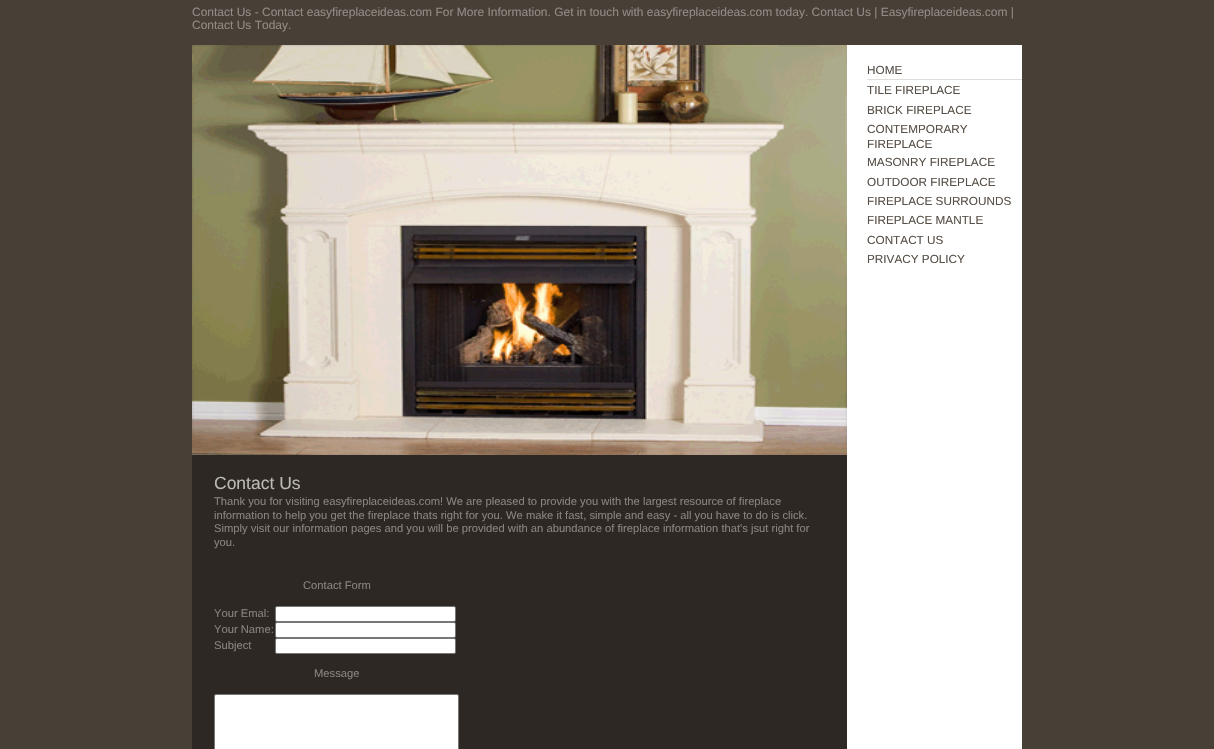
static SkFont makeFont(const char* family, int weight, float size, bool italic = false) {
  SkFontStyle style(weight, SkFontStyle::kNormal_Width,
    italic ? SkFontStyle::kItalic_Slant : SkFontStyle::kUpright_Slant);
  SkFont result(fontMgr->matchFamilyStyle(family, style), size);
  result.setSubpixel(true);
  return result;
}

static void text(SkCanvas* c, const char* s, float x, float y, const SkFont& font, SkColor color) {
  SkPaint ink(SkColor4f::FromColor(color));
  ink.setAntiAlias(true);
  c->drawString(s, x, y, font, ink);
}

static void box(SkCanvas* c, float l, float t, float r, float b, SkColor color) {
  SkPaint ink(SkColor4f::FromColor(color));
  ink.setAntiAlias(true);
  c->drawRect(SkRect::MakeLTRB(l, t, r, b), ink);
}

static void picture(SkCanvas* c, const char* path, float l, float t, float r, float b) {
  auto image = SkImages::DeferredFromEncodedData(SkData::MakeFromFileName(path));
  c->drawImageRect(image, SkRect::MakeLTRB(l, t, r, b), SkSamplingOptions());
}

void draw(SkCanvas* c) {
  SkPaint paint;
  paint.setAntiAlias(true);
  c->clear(0xff484037);
  box(c, 847, 45, 1022, 749, 0xffffffff);
  SkFont face1 = makeFont("Liberation Sans", 400, 12);
  text(c, "Contact Us - Contact easyfireplaceideas.com For More Information. Get in touch with easyfireplaceideas.com today. Contact Us | Easyfireplaceideas.com |", 192, 16, face1, 0xff928a86);
  text(c, "Contact Us Today.", 192, 29, face1, 0xff928a86);
  box(c, 867, 79, 1022, 80, 0xffdfdddb);
  SkFont face2 = makeFont("Liberation Sans", 400, 11.75f);
  text(c, "HOME", 867, 74, face2, 0xff585048);
  text(c, "TILE FIREPLACE", 867, 94, face2, 0xff585048);
  text(c, "BRICK FIREPLACE", 867, 114, face2, 0xff585048);
  text(c, "CONTEMPORARY", 867, 133, face2, 0xff585048);
  text(c, "FIREPLACE", 867, 148, face2, 0xff585048);
  text(c, "MASONRY FIREPLACE", 867, 166, face2, 0xff585048);
  text(c, "OUTDOOR FIREPLACE", 867, 186, face2, 0xff585048);
  text(c, "FIREPLACE SURROUNDS", 867, 205, face2, 0xff585048);
  text(c, "FIREPLACE MANTLE", 867, 224, face2, 0xff585048);
  text(c, "CONTACT US", 867, 244, face2, 0xff585048);
  text(c, "PRIVACY POLICY", 867, 263, face2, 0xff585048);
  box(c, 192, 455, 847, 749, 0xff2d2823);
  picture(c, "img_01.png", 192, 45, 847, 455);
  SkFont face3 = makeFont("Liberation Sans", 400, 17.5f);
  text(c, "Contact Us", 214, 489, face3, 0xffbdb9b5);
  SkFont face4 = makeFont("Liberation Sans", 400, 11.2f);
  text(c, "Thank you for visiting easyfireplaceideas.com! We are pleased to provide you with the largest resource of fireplace", 214, 505, face4, 0xff8a827d);
  text(c, "information to help you get the fireplace thats right for you. We make it fast, simple and easy - all you have to do is click.", 214, 519, face4, 0xff8a827d);
  text(c, "Simply visit our information pages and you will be provided with an abundance of fireplace information that's jsut right for", 214, 532, face4, 0xff8a827d);
  text(c, "you.", 214, 546, face4, 0xff8a827d);
  text(c, "Contact Form", 303, 589, face4, 0xff8a827d);
  text(c, "Your Emal:", 214, 617, face4, 0xff8a827d);
  paint.setColor(0xffffffff);
  c->drawRoundRect(SkRect::MakeLTRB(275.5f, 606.5f, 455.5f, 621.5f), 1.5f, 1.5f, paint);
  paint.setStyle(SkPaint::kStroke_Style);
  paint.setStrokeWidth(1);
  paint.setColor(0xff767676);
  c->drawRoundRect(SkRect::MakeLTRB(275.5f, 606.5f, 455.5f, 621.5f), 1.5f, 1.5f, paint);
  text(c, "Your Name:", 214, 633, face4, 0xff8a827d);
  paint.setStyle(SkPaint::kFill_Style);
  paint.setColor(0xffffffff);
  c->drawRoundRect(SkRect::MakeLTRB(275.5f, 622.5f, 455.5f, 637.5f), 1.5f, 1.5f, paint);
  paint.setStyle(SkPaint::kStroke_Style);
  paint.setColor(0xff767676);
  c->drawRoundRect(SkRect::MakeLTRB(275.5f, 622.5f, 455.5f, 637.5f), 1.5f, 1.5f, paint);
  text(c, "Subject", 214, 649, face4, 0xff8a827d);
  paint.setStyle(SkPaint::kFill_Style);
  paint.setColor(0xffffffff);
  c->drawRoundRect(SkRect::MakeLTRB(275.5f, 638.5f, 455.5f, 653.5f), 1.5f, 1.5f, paint);
  paint.setStyle(SkPaint::kStroke_Style);
  paint.setColor(0xff767676);
  c->drawRoundRect(SkRect::MakeLTRB(275.5f, 638.5f, 455.5f, 653.5f), 1.5f, 1.5f, paint);
  text(c, "Message", 314, 677, face4, 0xff8a827d);
  paint.setStyle(SkPaint::kFill_Style);
  paint.setColor(0xffffffff);
  c->drawRoundRect(SkRect::MakeLTRB(214.5f, 694.5f, 458.5f, 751.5f), 1.5f, 1.5f, paint);
  paint.setStyle(SkPaint::kStroke_Style);
  paint.setColor(0xff767676);
  c->drawRoundRect(SkRect::MakeLTRB(214.5f, 694.5f, 458.5f, 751.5f), 1.5f, 1.5f, paint);
}
